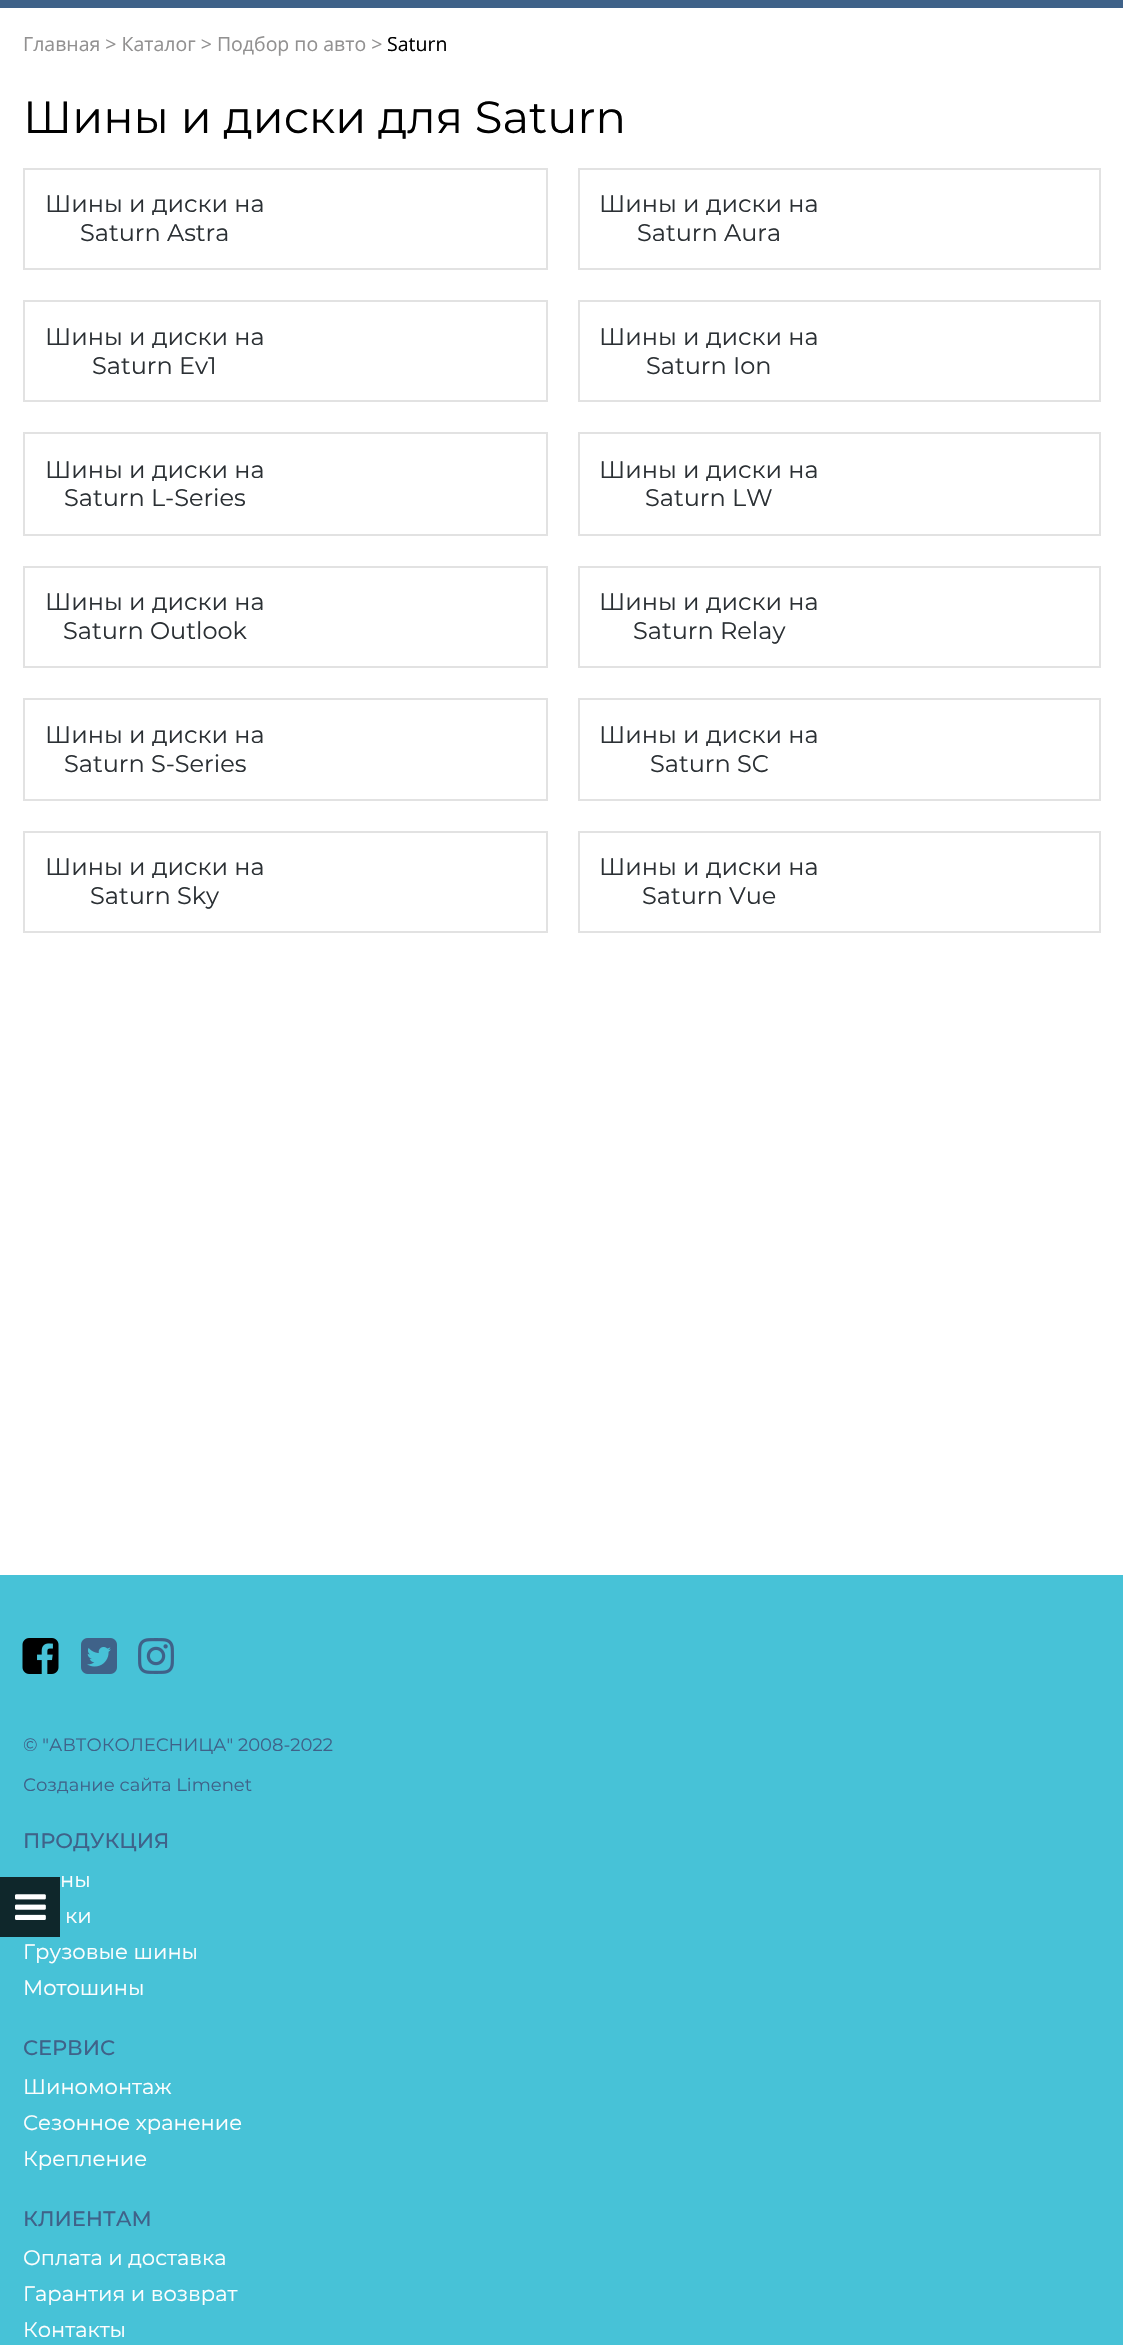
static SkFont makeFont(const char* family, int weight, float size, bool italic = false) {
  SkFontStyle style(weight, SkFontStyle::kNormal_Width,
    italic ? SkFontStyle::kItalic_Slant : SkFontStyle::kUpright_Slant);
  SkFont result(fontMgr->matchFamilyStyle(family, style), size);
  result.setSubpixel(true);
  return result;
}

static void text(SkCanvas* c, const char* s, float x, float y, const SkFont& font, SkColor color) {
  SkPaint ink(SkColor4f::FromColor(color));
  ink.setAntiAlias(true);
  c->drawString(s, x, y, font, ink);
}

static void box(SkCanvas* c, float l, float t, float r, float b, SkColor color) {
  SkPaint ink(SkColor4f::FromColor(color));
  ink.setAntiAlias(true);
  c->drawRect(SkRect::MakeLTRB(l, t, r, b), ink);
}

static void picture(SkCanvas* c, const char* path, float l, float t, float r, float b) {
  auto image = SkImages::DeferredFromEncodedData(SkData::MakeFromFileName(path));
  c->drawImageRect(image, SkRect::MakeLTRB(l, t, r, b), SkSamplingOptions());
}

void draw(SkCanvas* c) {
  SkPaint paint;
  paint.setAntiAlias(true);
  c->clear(0xffffffff);
  box(c, 0, 0, 1123, 8, 0xff3f6289);
  SkFont face1 = makeFont("Open Sans", 400, 19.5f);
  text(c, "Главная > Каталог > Подбор по авто >", 23, 51, face1, 0xff929191);
  text(c, "Saturn", 387, 51, face1, 0xff000000);
  SkFont face2 = makeFont("Montserrat", 400, 45);
  text(c, "Шины и диски для Saturn", 23, 133, face2, 0xff000000);
  paint.setStyle(SkPaint::kStroke_Style);
  paint.setStrokeWidth(2);
  paint.setColor(0xffe2e2e2);
  c->drawRect(SkRect::MakeLTRB(24, 169, 547, 269), paint);
  SkFont face3 = makeFont("Montserrat", 400, 24);
  text(c, "Шины и диски на", 45, 212, face3, 0xff2b3034);
  text(c, "Saturn Astra", 80, 241, face3, 0xff2b3034);
  c->drawRect(SkRect::MakeLTRB(579, 169, 1100, 269), paint);
  text(c, "Шины и диски на", 599, 212, face3, 0xff2b3034);
  text(c, "Saturn Aura", 637, 241, face3, 0xff2b3034);
  c->drawRect(SkRect::MakeLTRB(24, 301, 547, 401), paint);
  text(c, "Шины и диски на", 45, 345, face3, 0xff2b3034);
  text(c, "Saturn Ev1", 92, 374, face3, 0xff2b3034);
  c->drawRect(SkRect::MakeLTRB(579, 301, 1100, 401), paint);
  text(c, "Шины и диски на", 599, 345, face3, 0xff2b3034);
  text(c, "Saturn Ion", 646, 374, face3, 0xff2b3034);
  c->drawRect(SkRect::MakeLTRB(24, 433, 547, 535), paint);
  text(c, "Шины и диски на", 45, 478, face3, 0xff2b3034);
  text(c, "Saturn L-Series", 64, 506, face3, 0xff2b3034);
  c->drawRect(SkRect::MakeLTRB(579, 433, 1100, 535), paint);
  text(c, "Шины и диски на", 599, 478, face3, 0xff2b3034);
  text(c, "Saturn LW", 645, 506, face3, 0xff2b3034);
  c->drawRect(SkRect::MakeLTRB(24, 567, 547, 667), paint);
  text(c, "Шины и диски на", 45, 610, face3, 0xff2b3034);
  text(c, "Saturn Outlook", 63, 639, face3, 0xff2b3034);
  c->drawRect(SkRect::MakeLTRB(579, 567, 1100, 667), paint);
  text(c, "Шины и диски на", 599, 610, face3, 0xff2b3034);
  text(c, "Saturn Relay", 633, 639, face3, 0xff2b3034);
  c->drawRect(SkRect::MakeLTRB(24, 699, 547, 800), paint);
  text(c, "Шины и диски на", 45, 743, face3, 0xff2b3034);
  text(c, "Saturn S-Series", 64, 772, face3, 0xff2b3034);
  c->drawRect(SkRect::MakeLTRB(579, 699, 1100, 800), paint);
  text(c, "Шины и диски на", 599, 743, face3, 0xff2b3034);
  text(c, "Saturn SC", 650, 772, face3, 0xff2b3034);
  c->drawRect(SkRect::MakeLTRB(24, 832, 547, 932), paint);
  text(c, "Шины и диски на", 45, 875, face3, 0xff2b3034);
  text(c, "Saturn Sky", 90, 904, face3, 0xff2b3034);
  c->drawRect(SkRect::MakeLTRB(579, 832, 1100, 932), paint);
  text(c, "Шины и диски на", 599, 875, face3, 0xff2b3034);
  text(c, "Saturn Vue", 642, 904, face3, 0xff2b3034);
  box(c, 0, 1575, 1123, 2345, 0xff47c2d7);
  box(c, 0, 1877, 60, 1937, 0xcc000000);
  picture(c, "img_01.png", 15, 1894, 46, 1920);
  picture(c, "img_02.png", 22, 1638, 59, 1674);
  picture(c, "img_03.png", 81, 1638, 117, 1674);
  picture(c, "img_04.png", 138, 1638, 174, 1674);
  SkFont face4 = makeFont("Montserrat", 400, 18);
  text(c, "© \"АВТОКОЛЕСНИЦА\" 2008-2022", 23, 1751, face4, 0xff3f6289);
  text(c, "Создание сайта Limenet", 23, 1791, face4, 0xff3f6289);
  SkFont face5 = makeFont("Montserrat", 500, 21);
  text(c, "ПРОДУКЦИЯ", 23, 1848, face5, 0xff3f6289);
  SkFont face6 = makeFont("Montserrat", 400, 21);
  text(c, "ны", 60, 1887, face6, 0xfffefefe);
  text(c, "ки", 65, 1923, face6, 0xfffefefe);
  text(c, "Грузовые шины", 23, 1959, face6, 0xfffefefe);
  text(c, "Мотошины", 23, 1995, face6, 0xfffefefe);
  text(c, "СЕРВИС", 23, 2055, face5, 0xff3f6289);
  text(c, "Шиномонтаж", 23, 2094, face6, 0xfffefefe);
  text(c, "Сезонное хранение", 23, 2130, face6, 0xfffefefe);
  text(c, "Крепление", 23, 2166, face6, 0xfffefefe);
  text(c, "КЛИЕНТАМ", 23, 2226, face5, 0xff3f6289);
  text(c, "Оплата и доставка", 23, 2265, face6, 0xfffefefe);
  text(c, "Гарантия и возврат", 23, 2301, face6, 0xfffefefe);
  text(c, "Контакты", 23, 2337, face6, 0xfffefefe);
}
